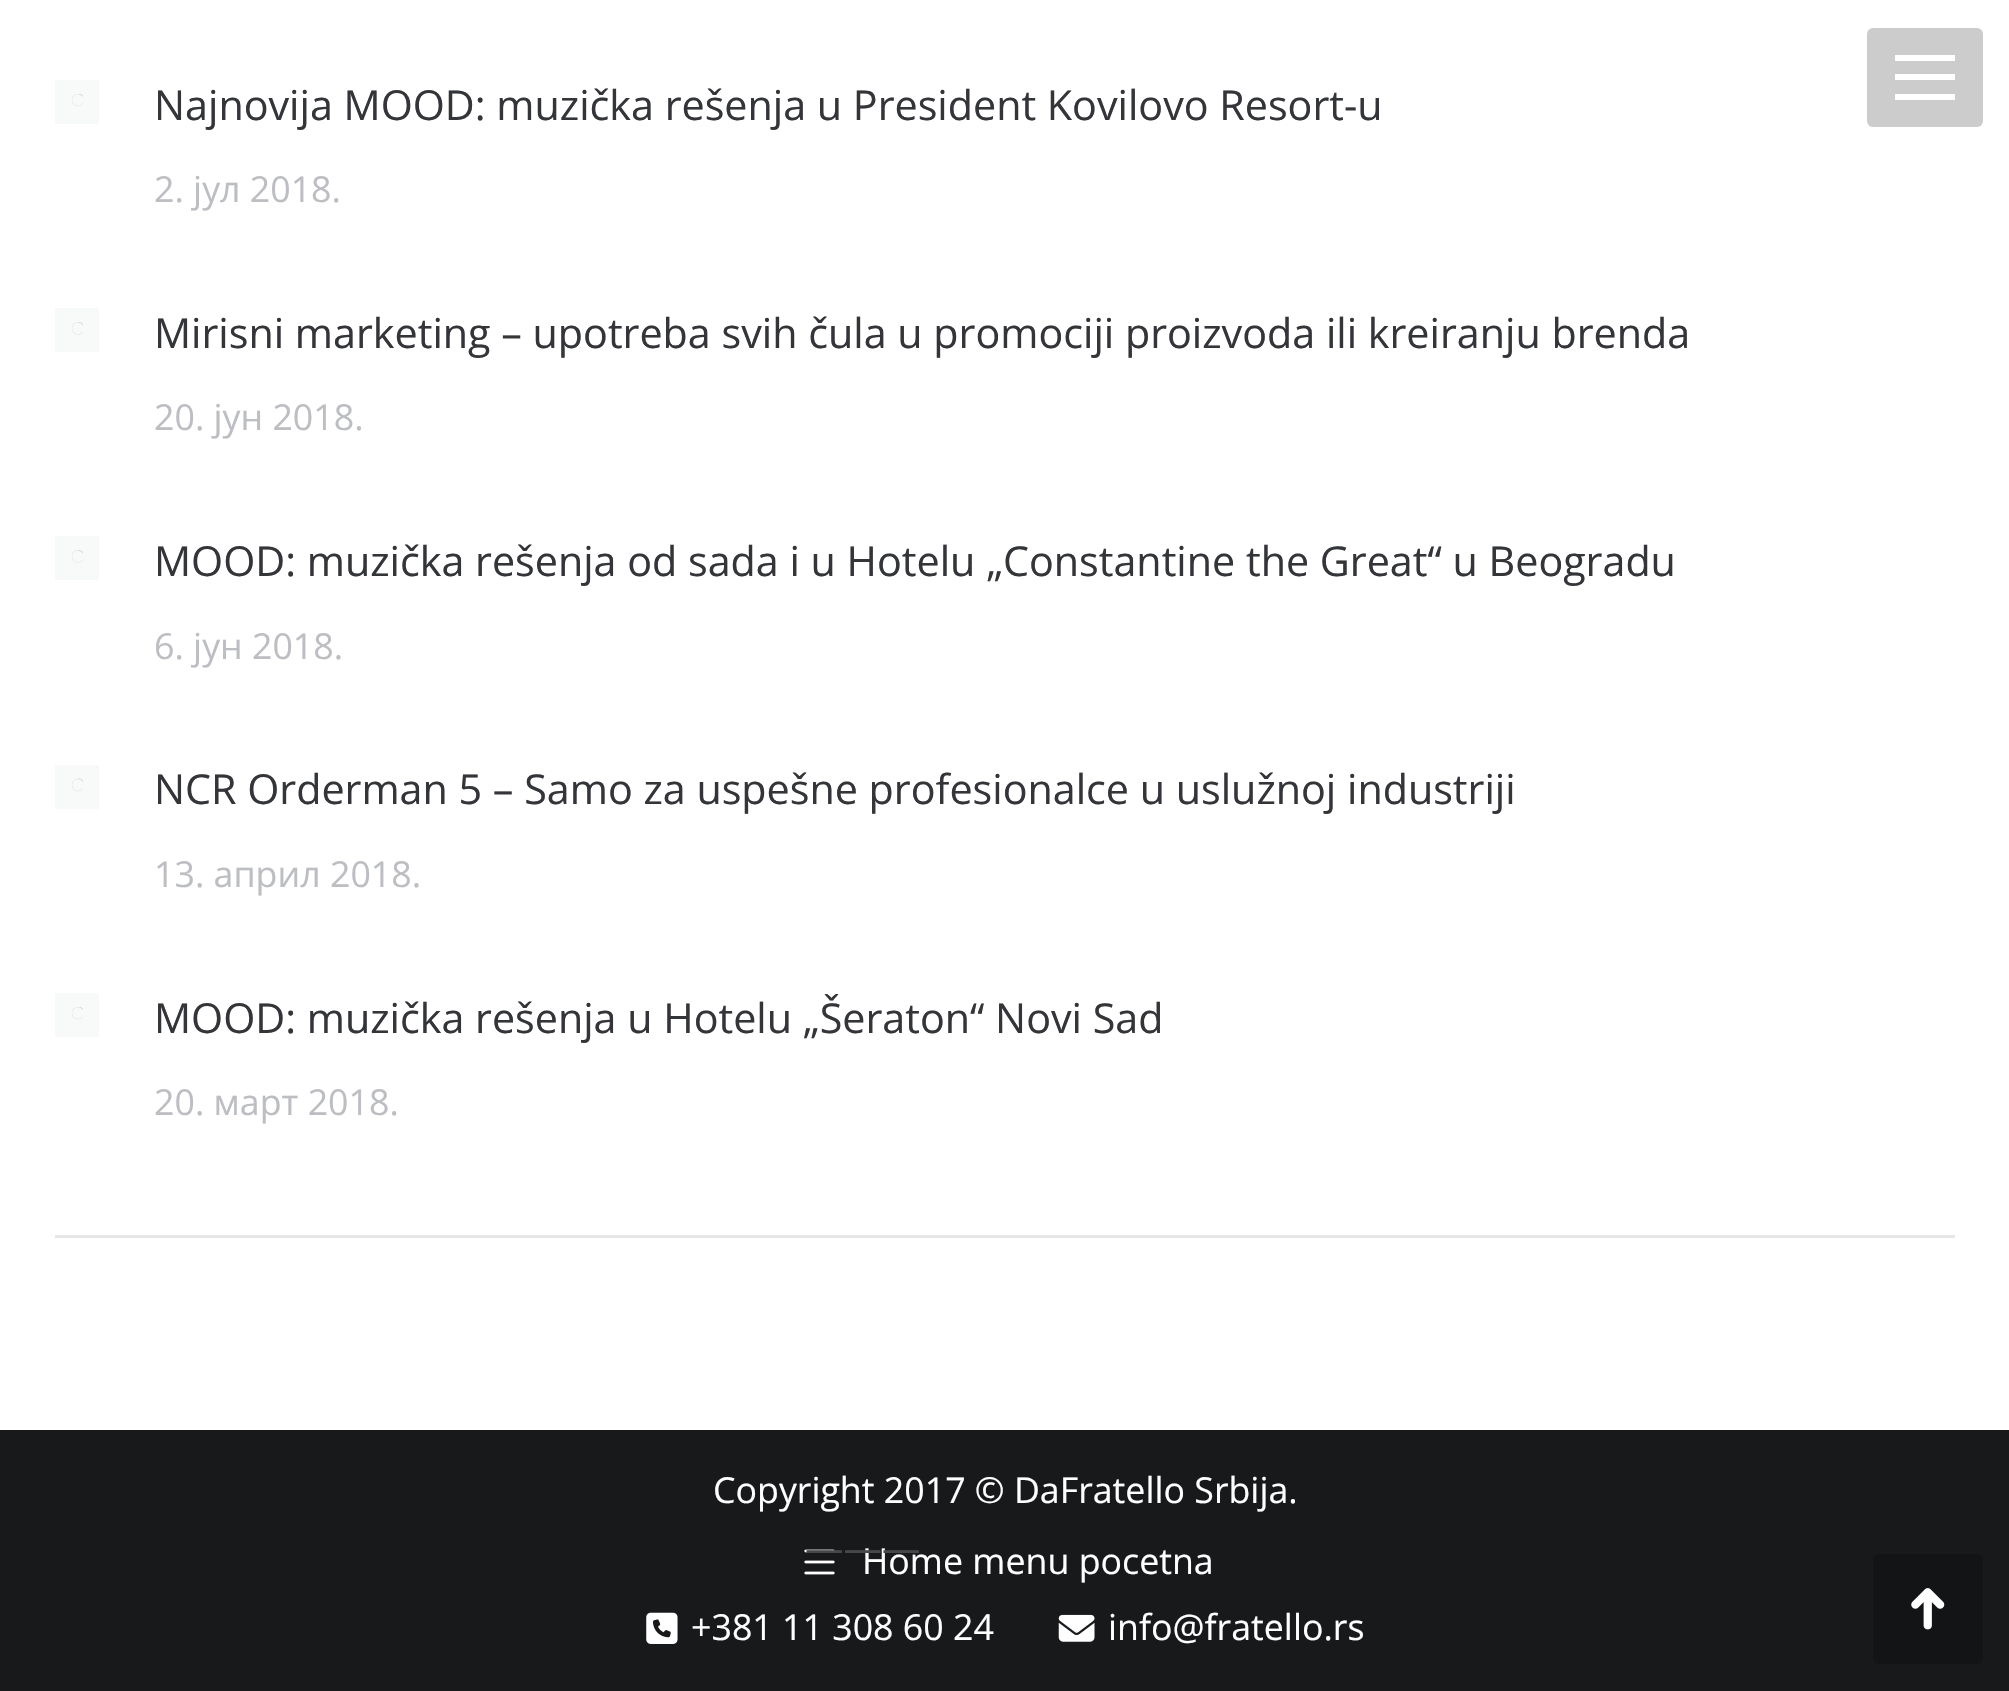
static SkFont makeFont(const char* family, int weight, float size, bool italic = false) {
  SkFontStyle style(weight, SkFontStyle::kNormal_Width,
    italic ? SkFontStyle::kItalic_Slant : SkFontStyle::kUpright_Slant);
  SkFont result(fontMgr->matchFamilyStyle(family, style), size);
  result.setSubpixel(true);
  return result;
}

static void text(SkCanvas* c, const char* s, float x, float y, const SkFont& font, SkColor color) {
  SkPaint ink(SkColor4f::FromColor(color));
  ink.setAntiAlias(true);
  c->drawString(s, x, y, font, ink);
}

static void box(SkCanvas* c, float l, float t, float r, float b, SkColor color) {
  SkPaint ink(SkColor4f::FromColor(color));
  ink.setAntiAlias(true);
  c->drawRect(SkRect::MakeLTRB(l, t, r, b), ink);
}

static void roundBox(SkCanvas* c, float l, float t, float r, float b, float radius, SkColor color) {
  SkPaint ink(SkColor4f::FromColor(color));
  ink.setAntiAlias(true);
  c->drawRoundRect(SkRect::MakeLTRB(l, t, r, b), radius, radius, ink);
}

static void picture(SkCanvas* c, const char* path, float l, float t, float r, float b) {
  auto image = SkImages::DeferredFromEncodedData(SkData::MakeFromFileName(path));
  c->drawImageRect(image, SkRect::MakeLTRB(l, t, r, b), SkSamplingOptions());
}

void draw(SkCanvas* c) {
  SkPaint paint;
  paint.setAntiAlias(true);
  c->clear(0xffffffff);
  roundBox(c, 1867, 28, 1983, 127, 6, 0xffcccccc);
  box(c, 1895, 55, 1955, 61, 0xffffffff);
  box(c, 1895, 74, 1955, 80, 0xffffffff);
  box(c, 1895, 94, 1955, 100, 0xffffffff);
  box(c, 55, 1235, 1955, 1238, 0xffe6e7e9);
  box(c, 55, 80, 99, 124, 0xfff8f9f9);
  picture(c, "img_01.png", 72, 94, 83, 107);
  SkFont face1 = makeFont("Open Sans", 400, 41.25f);
  text(c, "Najnovija MOOD: muzička rešenja u President Kovilovo Resort-u", 154, 120, face1, 0xff333539);
  SkFont face2 = makeFont("Open Sans", 400, 35.75f);
  text(c, "2. јул 2018.", 154, 202, face2, 0xffbcbec2);
  box(c, 55, 308, 99, 352, 0xfff8f9f9);
  picture(c, "img_02.png", 72, 322, 83, 335);
  text(c, "Mirisni marketing – upotreba svih čula u promociji proizvoda ili kreiranju brenda", 154, 348, face1, 0xff333539);
  text(c, "20. јун 2018.", 154, 430, face2, 0xffbcbec2);
  box(c, 55, 536, 99, 580, 0xfff8f9f9);
  picture(c, "img_03.png", 72, 550, 83, 563);
  text(c, "MOOD: muzička rešenja od sada i u Hotelu „Constantine the Great“ u Beogradu", 154, 576, face1, 0xff333539);
  text(c, "6. јун 2018.", 154, 659, face2, 0xffbcbec2);
  box(c, 55, 765, 99, 809, 0xfff8f9f9);
  picture(c, "img_04.png", 72, 778, 83, 792);
  text(c, "NCR Orderman 5 – Samo za uspešne profesionalce u uslužnoj industriji", 154, 804, face1, 0xff333539);
  text(c, "13. април 2018.", 154, 887, face2, 0xffbcbec2);
  box(c, 55, 993, 99, 1037, 0xfff8f9f9);
  picture(c, "img_01.png", 72, 1007, 83, 1020);
  text(c, "MOOD: muzička rešenja u Hotelu „Šeraton“ Novi Sad", 154, 1033, face1, 0xff333539);
  text(c, "20. март 2018.", 154, 1115, face2, 0xffbcbec2);
  box(c, 0, 1430, 2009, 1691, 0xff18191b);
  text(c, "Copyright 2017 © DaFratello Srbija.", 713, 1503, face2, 0xffffffff);
  picture(c, "img_05.png", 804, 1549, 835, 1575);
  text(c, "Home menu pocetna", 862, 1574, face2, 0xffffffff);
  SkFont face3 = makeFont("Open Sans", 400, 38.5f);
  text(c, "———", 805, 1562, face3, 0xff48484a);
  picture(c, "img_06.png", 646, 1612, 678, 1644);
  text(c, "+381 11 308 60 24", 691, 1640, face2, 0xffffffff);
  picture(c, "img_07.png", 1058, 1614, 1095, 1642);
  text(c, "info@fratello.rs", 1108, 1640, face2, 0xffffffff);
  roundBox(c, 1873, 1554, 1983, 1664, 6, 0xff131416);
  picture(c, "img_08.png", 1911, 1588, 1945, 1630);
}
